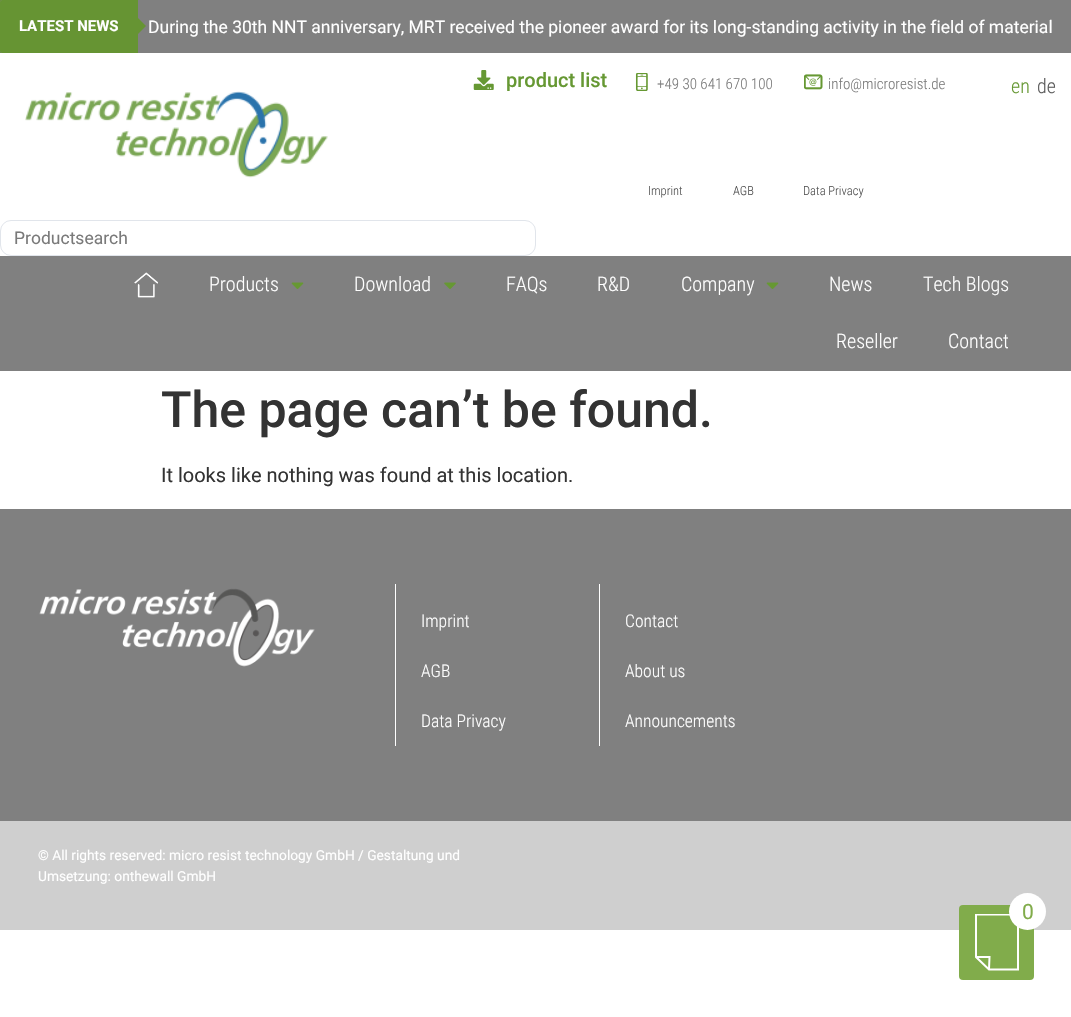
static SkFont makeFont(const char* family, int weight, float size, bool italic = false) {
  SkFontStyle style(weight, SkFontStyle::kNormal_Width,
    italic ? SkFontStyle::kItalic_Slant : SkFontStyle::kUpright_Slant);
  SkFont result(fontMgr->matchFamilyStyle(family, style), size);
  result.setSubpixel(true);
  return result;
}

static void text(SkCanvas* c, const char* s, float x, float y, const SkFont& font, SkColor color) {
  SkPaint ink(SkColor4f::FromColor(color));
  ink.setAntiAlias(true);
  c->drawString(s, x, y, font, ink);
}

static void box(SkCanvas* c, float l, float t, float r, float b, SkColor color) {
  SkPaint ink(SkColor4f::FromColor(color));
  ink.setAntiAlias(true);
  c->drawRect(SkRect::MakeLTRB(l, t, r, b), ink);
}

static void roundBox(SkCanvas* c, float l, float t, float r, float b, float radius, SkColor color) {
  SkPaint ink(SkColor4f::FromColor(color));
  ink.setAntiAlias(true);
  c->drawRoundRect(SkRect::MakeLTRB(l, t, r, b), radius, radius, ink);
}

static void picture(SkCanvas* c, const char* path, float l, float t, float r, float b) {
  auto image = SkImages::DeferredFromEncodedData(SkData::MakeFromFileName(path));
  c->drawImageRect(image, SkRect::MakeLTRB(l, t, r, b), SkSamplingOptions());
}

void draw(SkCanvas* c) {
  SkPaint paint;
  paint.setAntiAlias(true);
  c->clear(0xffffffff);
  box(c, 0, 0, 3, 53, 0xff669433);
  box(c, 1068, 0, 1071, 53, 0xff808080);
  roundBox(c, 0, 0, 1071, 53, 2.5f, 0xff808080);
  picture(c, "img_04.png", 25, 91, 328, 178);
  c->save();
  c->clipRect(SkRect::MakeLTRB(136, 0, 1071, 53));
  paint.setColor(0xff808080);
  paint.setMaskFilter(SkMaskFilter::MakeBlur(kNormal_SkBlurStyle, 7.5f));
  c->drawRect(SkRect::MakeLTRB(120, -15, 151, 68), paint);
  paint.setMaskFilter(nullptr);
  c->restore();
  paint.setColor(0xff669433);
  c->drawPath(SkPathBuilder().moveTo(2.5f, 0).lineTo(138, 0).lineTo(138, 53).lineTo(2.5f, 53).cubicTo(1, 53, 0, 52, 0, 50.5f).lineTo(0, 2.5f).cubicTo(0, 1, 1, 0, 2.5f, 0).close().detach(), paint);
  SkFont face1 = makeFont("Roboto", 700, 15);
  text(c, "LATEST NEWS", 19, 31, face1, 0xffffffff);
  c->drawPath(SkPathBuilder().moveTo(136, 36).lineTo(136, 16).lineTo(146, 26).close().detach(), paint);
  c->save();
  c->clipRect(SkRect::MakeLTRB(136, 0, 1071, 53));
  paint.setColor(0xff808080);
  paint.setMaskFilter(SkMaskFilter::MakeBlur(kNormal_SkBlurStyle, 7.5f));
  c->drawRect(SkRect::MakeLTRB(1056, -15, 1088, 68), paint);
  paint.setMaskFilter(nullptr);
  c->restore();
  SkFont face2 = makeFont("Roboto", 400, 17.5f);
  text(c, "During the 30th NNT anniversary, MRT received the pioneer award for its long-standing activity in the field of material", 148, 33, face2, 0xffffffff);
  picture(c, "img_01.png", 473, 70, 494, 90);
  SkFont face3 = makeFont("Roboto", 500, 20);
  text(c, "product list", 506, 87, face3, 0xff669833);
  picture(c, "img_02.png", 635, 73, 648, 91);
  SkFont face4 = makeFont("Roboto Condensed", 300, 15);
  text(c, "+49 30 641 670 100", 657, 89, face4, 0xff7a7a7a);
  picture(c, "img_03.png", 804, 74, 823, 90);
  text(c, "info@microresist.de", 828, 89, face4, 0xff7a7a7a);
  SkFont face5 = makeFont("Roboto Condensed", 300, 20);
  text(c, "en", 1011, 93, face5, 0xff669833);
  text(c, "de", 1037, 93, face5, 0xff5b5b5b);
  SkFont face6 = makeFont("Roboto Condensed", 300, 12.5f);
  text(c, "Imprint", 648, 195, face6, 0xff515151);
  text(c, "AGB", 733, 195, face6, 0xff515151);
  text(c, "Data Privacy", 803, 195, face6, 0xff515151);
  paint.setStyle(SkPaint::kStroke_Style);
  paint.setStrokeWidth(1);
  paint.setColor(0xffe1e5eb);
  c->drawRoundRect(SkRect::MakeLTRB(0.5f, 220.5f, 535.5f, 255.5f), 10.5f, 10.5f, paint);
  text(c, "Productsearch", 14, 244, face2, 0xff7a7a7a);
  box(c, 0, 256, 1071, 371, 0xff808080);
  picture(c, "img_05.png", 134, 272, 158, 298);
  text(c, "Products", 209, 291, face5, 0xffffffff);
  picture(c, "img_06.png", 291, 282, 304, 289);
  text(c, "Download", 354, 291, face5, 0xffffffff);
  picture(c, "img_07.png", 444, 282, 456, 289);
  text(c, "FAQs", 506, 291, face5, 0xffffffff);
  text(c, "R&D", 597, 291, face5, 0xffffffff);
  text(c, "Company", 681, 291, face5, 0xffffffff);
  picture(c, "img_06.png", 766, 282, 779, 289);
  text(c, "News", 829, 291, face5, 0xffffffff);
  text(c, "Tech Blogs", 923, 291, face5, 0xffffffff);
  text(c, "Reseller", 836, 348, face5, 0xffffffff);
  text(c, "Contact", 948, 348, face5, 0xffffffff);
  SkFont face7 = makeFont("Roboto", 500, 50);
  text(c, "The page can’t be found.", 161, 427, face7, 0xff333333);
  SkFont face8 = makeFont("Roboto", 400, 20);
  text(c, "It looks like nothing was found at this location.", 161, 482, face8, 0xff333333);
  box(c, 0, 509, 1071, 821, 0xff808080);
  picture(c, "img_08.png", 39, 588, 315, 667);
  box(c, 395, 584, 396, 746, 0xffffffff);
  SkFont face9 = makeFont("Roboto Condensed", 300, 17.5f);
  text(c, "Imprint", 421, 627, face9, 0xffffffff);
  text(c, "AGB", 421, 677, face9, 0xffffffff);
  text(c, "Data Privacy", 421, 727, face9, 0xffffffff);
  box(c, 599, 584, 600, 746, 0xffffffff);
  text(c, "Contact", 625, 627, face9, 0xffffffff);
  text(c, "About us", 625, 677, face9, 0xffffffff);
  text(c, "Announcements", 625, 727, face9, 0xffffffff);
  box(c, 0, 821, 1071, 930, 0xffcfcfcf);
  SkFont face10 = makeFont("Roboto", 400, 13.75f);
  text(c, "© All rights reserved: micro resist technology GmbH / Gestaltung und", 38, 860, face10, 0xffffffff);
  text(c, "Umsetzung: onthewall GmbH", 38, 881, face10, 0xffffffff);
  roundBox(c, 959, 905, 1034, 980, 4, 0xff81ac4b);
  c->save();
  c->clipRect(SkRect::MakeLTRB(975, 914, 1019, 971));
  paint.setStrokeWidth(2);
  paint.setColor(0xffffffff);
  c->drawPath(SkPathBuilder().moveTo(1018, 969.5f).lineTo(989, 969.5f).lineTo(976, 957).lineTo(976, 914.5f).lineTo(1018, 914.5f).close().detach(), paint);
  c->restore();
  paint.setStyle(SkPaint::kFill_Style);
  c->drawCircle(1027.5f, 911.5f, 18.5f, paint);
  SkFont face11 = makeFont("Roboto", 400, 21);
  text(c, "0", 1022, 919, face11, 0xff81ac4b);
  paint.setStyle(SkPaint::kStroke_Style);
  c->drawPath(SkPathBuilder().moveTo(976, 957).lineTo(989.5f, 957).lineTo(989, 969.5f).detach(), paint);
}
